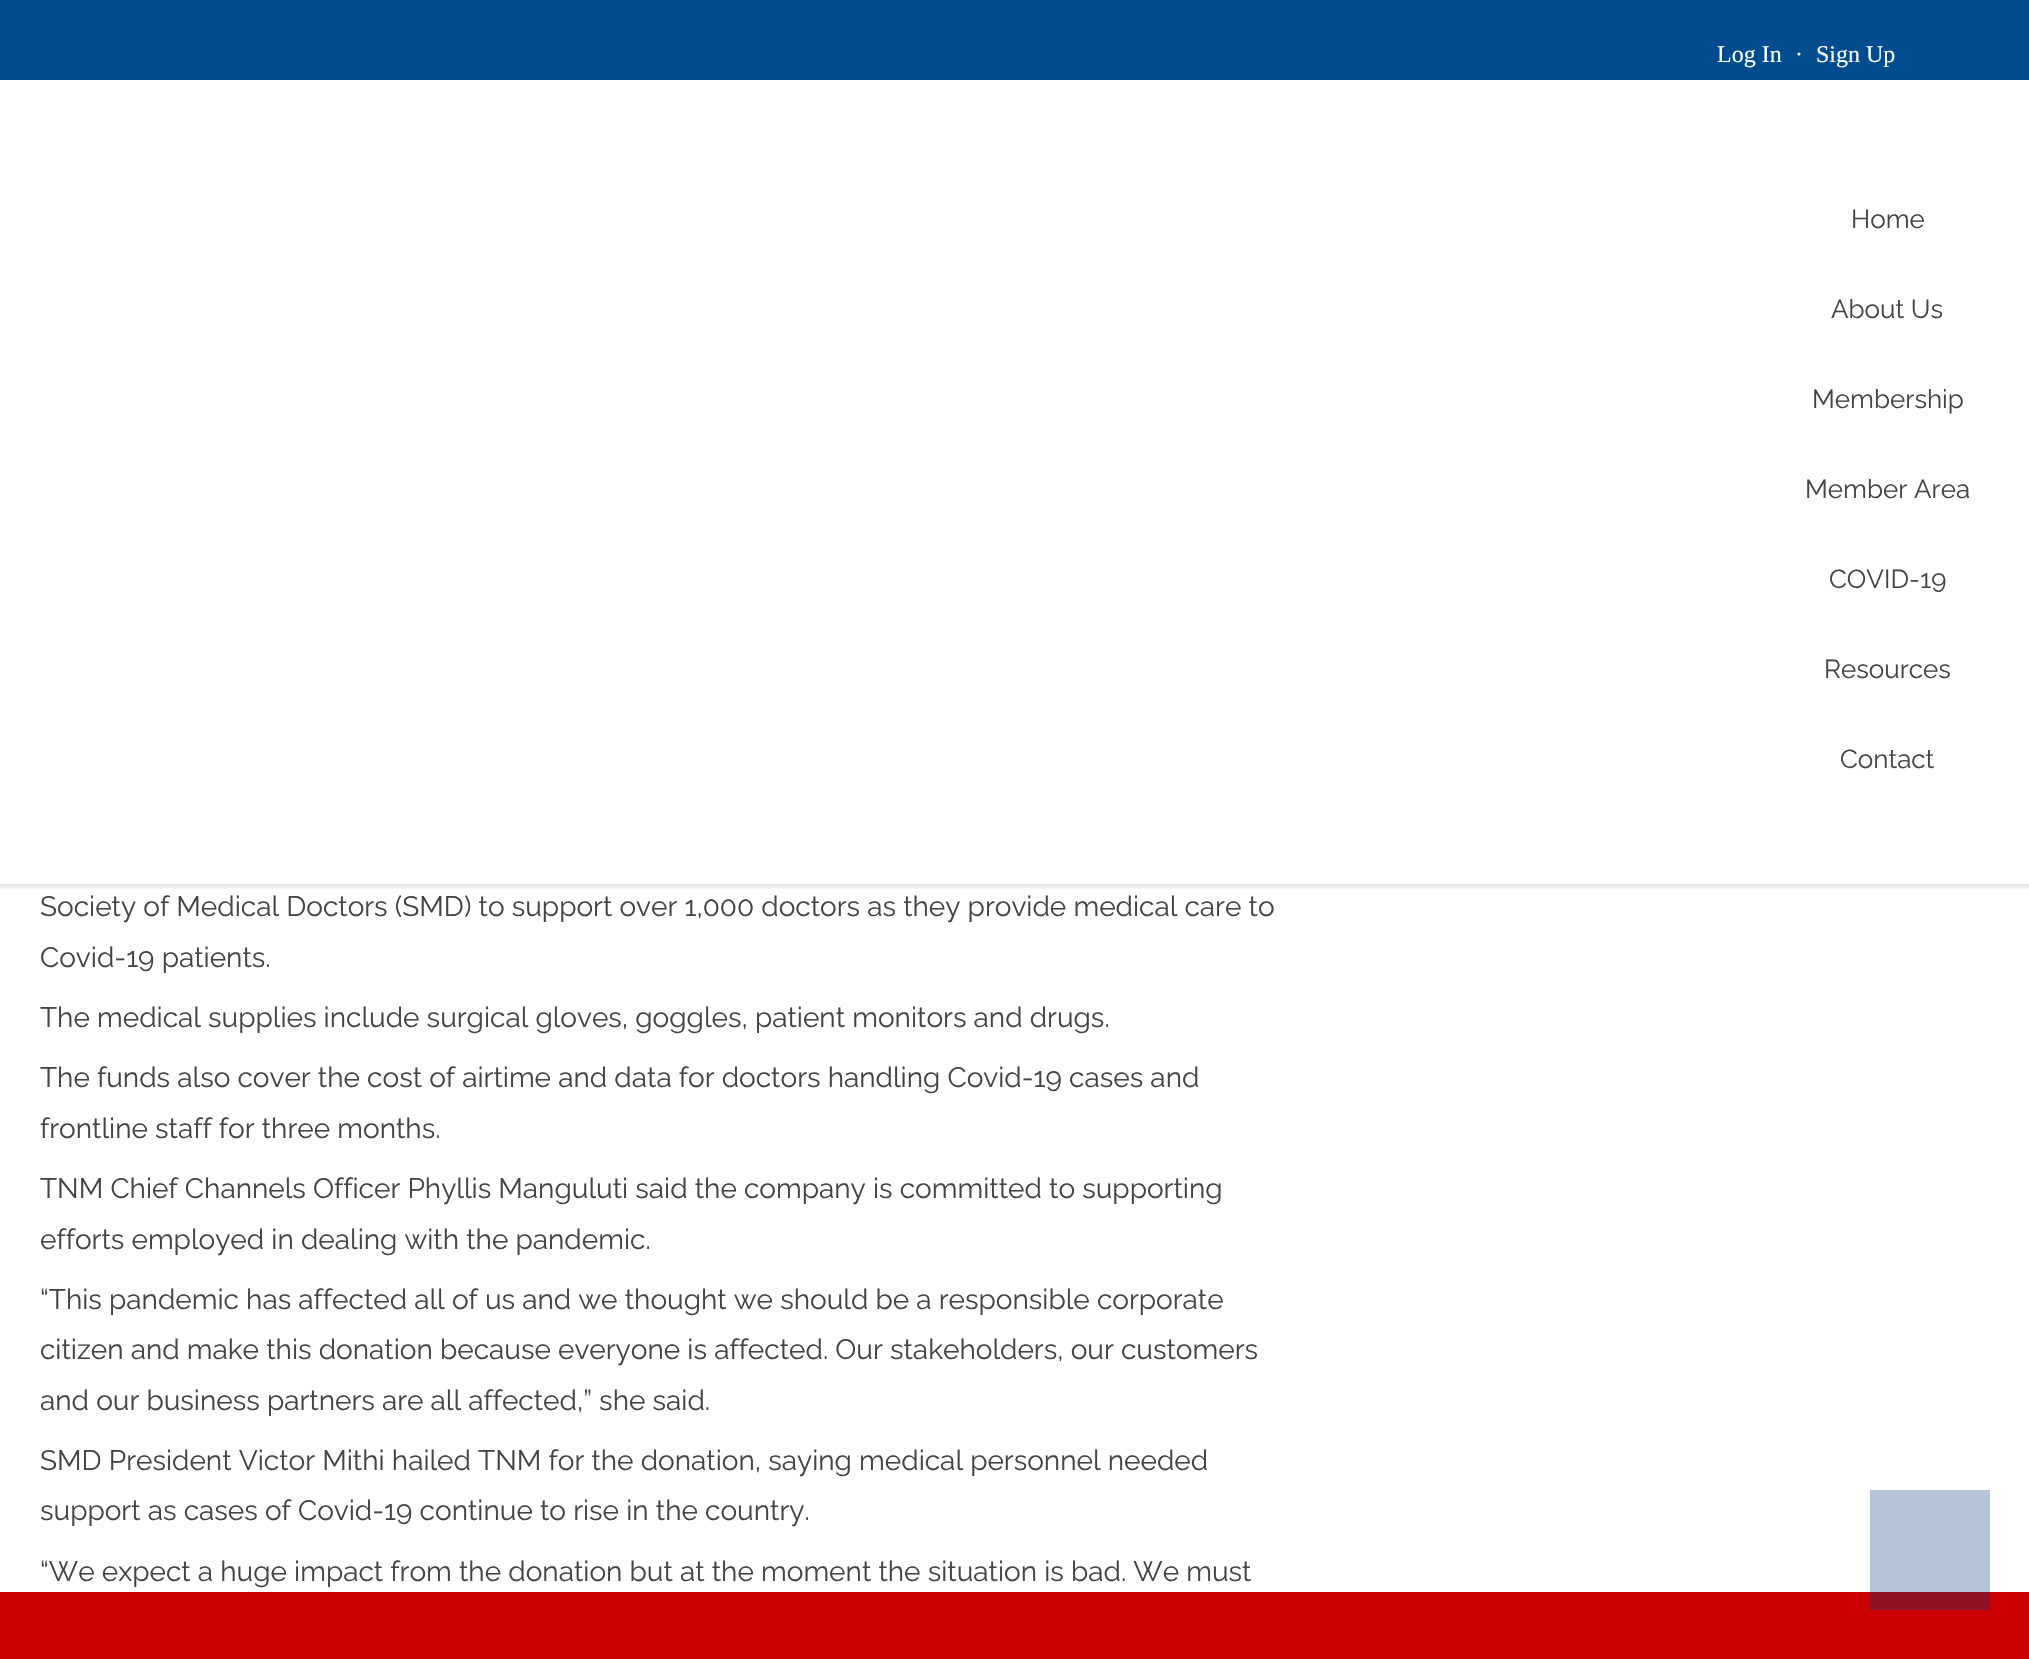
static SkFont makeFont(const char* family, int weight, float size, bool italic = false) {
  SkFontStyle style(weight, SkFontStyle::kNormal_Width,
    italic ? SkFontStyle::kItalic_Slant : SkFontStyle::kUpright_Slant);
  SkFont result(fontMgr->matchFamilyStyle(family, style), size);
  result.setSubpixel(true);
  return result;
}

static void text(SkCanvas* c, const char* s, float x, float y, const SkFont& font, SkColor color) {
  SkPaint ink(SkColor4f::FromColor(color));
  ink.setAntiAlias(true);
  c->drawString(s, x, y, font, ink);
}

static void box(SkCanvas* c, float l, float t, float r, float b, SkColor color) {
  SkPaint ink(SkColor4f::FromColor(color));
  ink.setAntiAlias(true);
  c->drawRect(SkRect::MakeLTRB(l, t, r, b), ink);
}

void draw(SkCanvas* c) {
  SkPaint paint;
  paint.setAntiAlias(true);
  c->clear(0xffffffff);
  box(c, 1870, 1490, 1990, 1592, 0xffb3c4d6);
  paint.setColor(0x1a1c1c1c);
  paint.setMaskFilter(SkMaskFilter::MakeBlur(kNormal_SkBlurStyle, 1));
  c->drawRect(SkRect::MakeLTRB(0, 4, 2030, 888), paint);
  paint.setMaskFilter(nullptr);
  box(c, 0, 80, 2029, 884, 0xffffffff);
  box(c, 0, 0, 2029, 80, 0xff014c8f);
  SkFont face1 = makeFont("Liberation Serif", 400, 24);
  text(c, "Log In", 1717, 62, face1, 0xffffffff);
  text(c, "∙", 1796, 62, face1, 0xffffffff);
  text(c, "Sign Up", 1816, 62, face1, 0xffffffff);
  SkFont face2 = makeFont("Raleway", 400, 26);
  text(c, "Home", 1851, 228, face2, 0xff444444);
  text(c, "About Us", 1831, 318, face2, 0xff444444);
  text(c, "Membership", 1812, 408, face2, 0xff444444);
  text(c, "Member Area", 1805, 498, face2, 0xff444444);
  text(c, "COVID-19", 1829, 588, face2, 0xff444444);
  text(c, "Resources", 1824, 678, face2, 0xff444444);
  text(c, "Contact", 1840, 768, face2, 0xff444444);
  box(c, 0, 1592, 2029, 1659, 0xffcc0000);
  box(c, 1870, 1592, 1990, 1610, 0xff8f1123);
  SkFont face3 = makeFont("Raleway", 400, 28);
  text(c, "Society of Medical Doctors (SMD) to support over 1,000 doctors as they provide medical care to", 40, 916, face3, 0xff444444);
  text(c, "Covid-19 patients.", 40, 967, face3, 0xff444444);
  text(c, "The medical supplies include surgical gloves, goggles, patient monitors and drugs.", 40, 1027, face3, 0xff444444);
  text(c, "The funds also cover the cost of airtime and data for doctors handling Covid-19 cases and", 40, 1087, face3, 0xff444444);
  text(c, "frontline staff for three months.", 40, 1138, face3, 0xff444444);
  text(c, "TNM Chief Channels Officer Phyllis Manguluti said the company is committed to supporting", 40, 1198, face3, 0xff444444);
  text(c, "efforts employed in dealing with the pandemic.", 40, 1249, face3, 0xff444444);
  text(c, "“This pandemic has affected all of us and we thought we should be a responsible corporate", 40, 1309, face3, 0xff444444);
  text(c, "citizen and make this donation because everyone is affected. Our stakeholders, our customers", 40, 1359, face3, 0xff444444);
  text(c, "and our business partners are all affected,” she said.", 40, 1410, face3, 0xff444444);
  text(c, "SMD President Victor Mithi hailed TNM for the donation, saying medical personnel needed", 40, 1470, face3, 0xff444444);
  text(c, "support as cases of Covid-19 continue to rise in the country.", 40, 1520, face3, 0xff444444);
  text(c, "“We expect a huge impact from the donation but at the moment the situation is bad. We must", 40, 1581, face3, 0xff444444);
}
